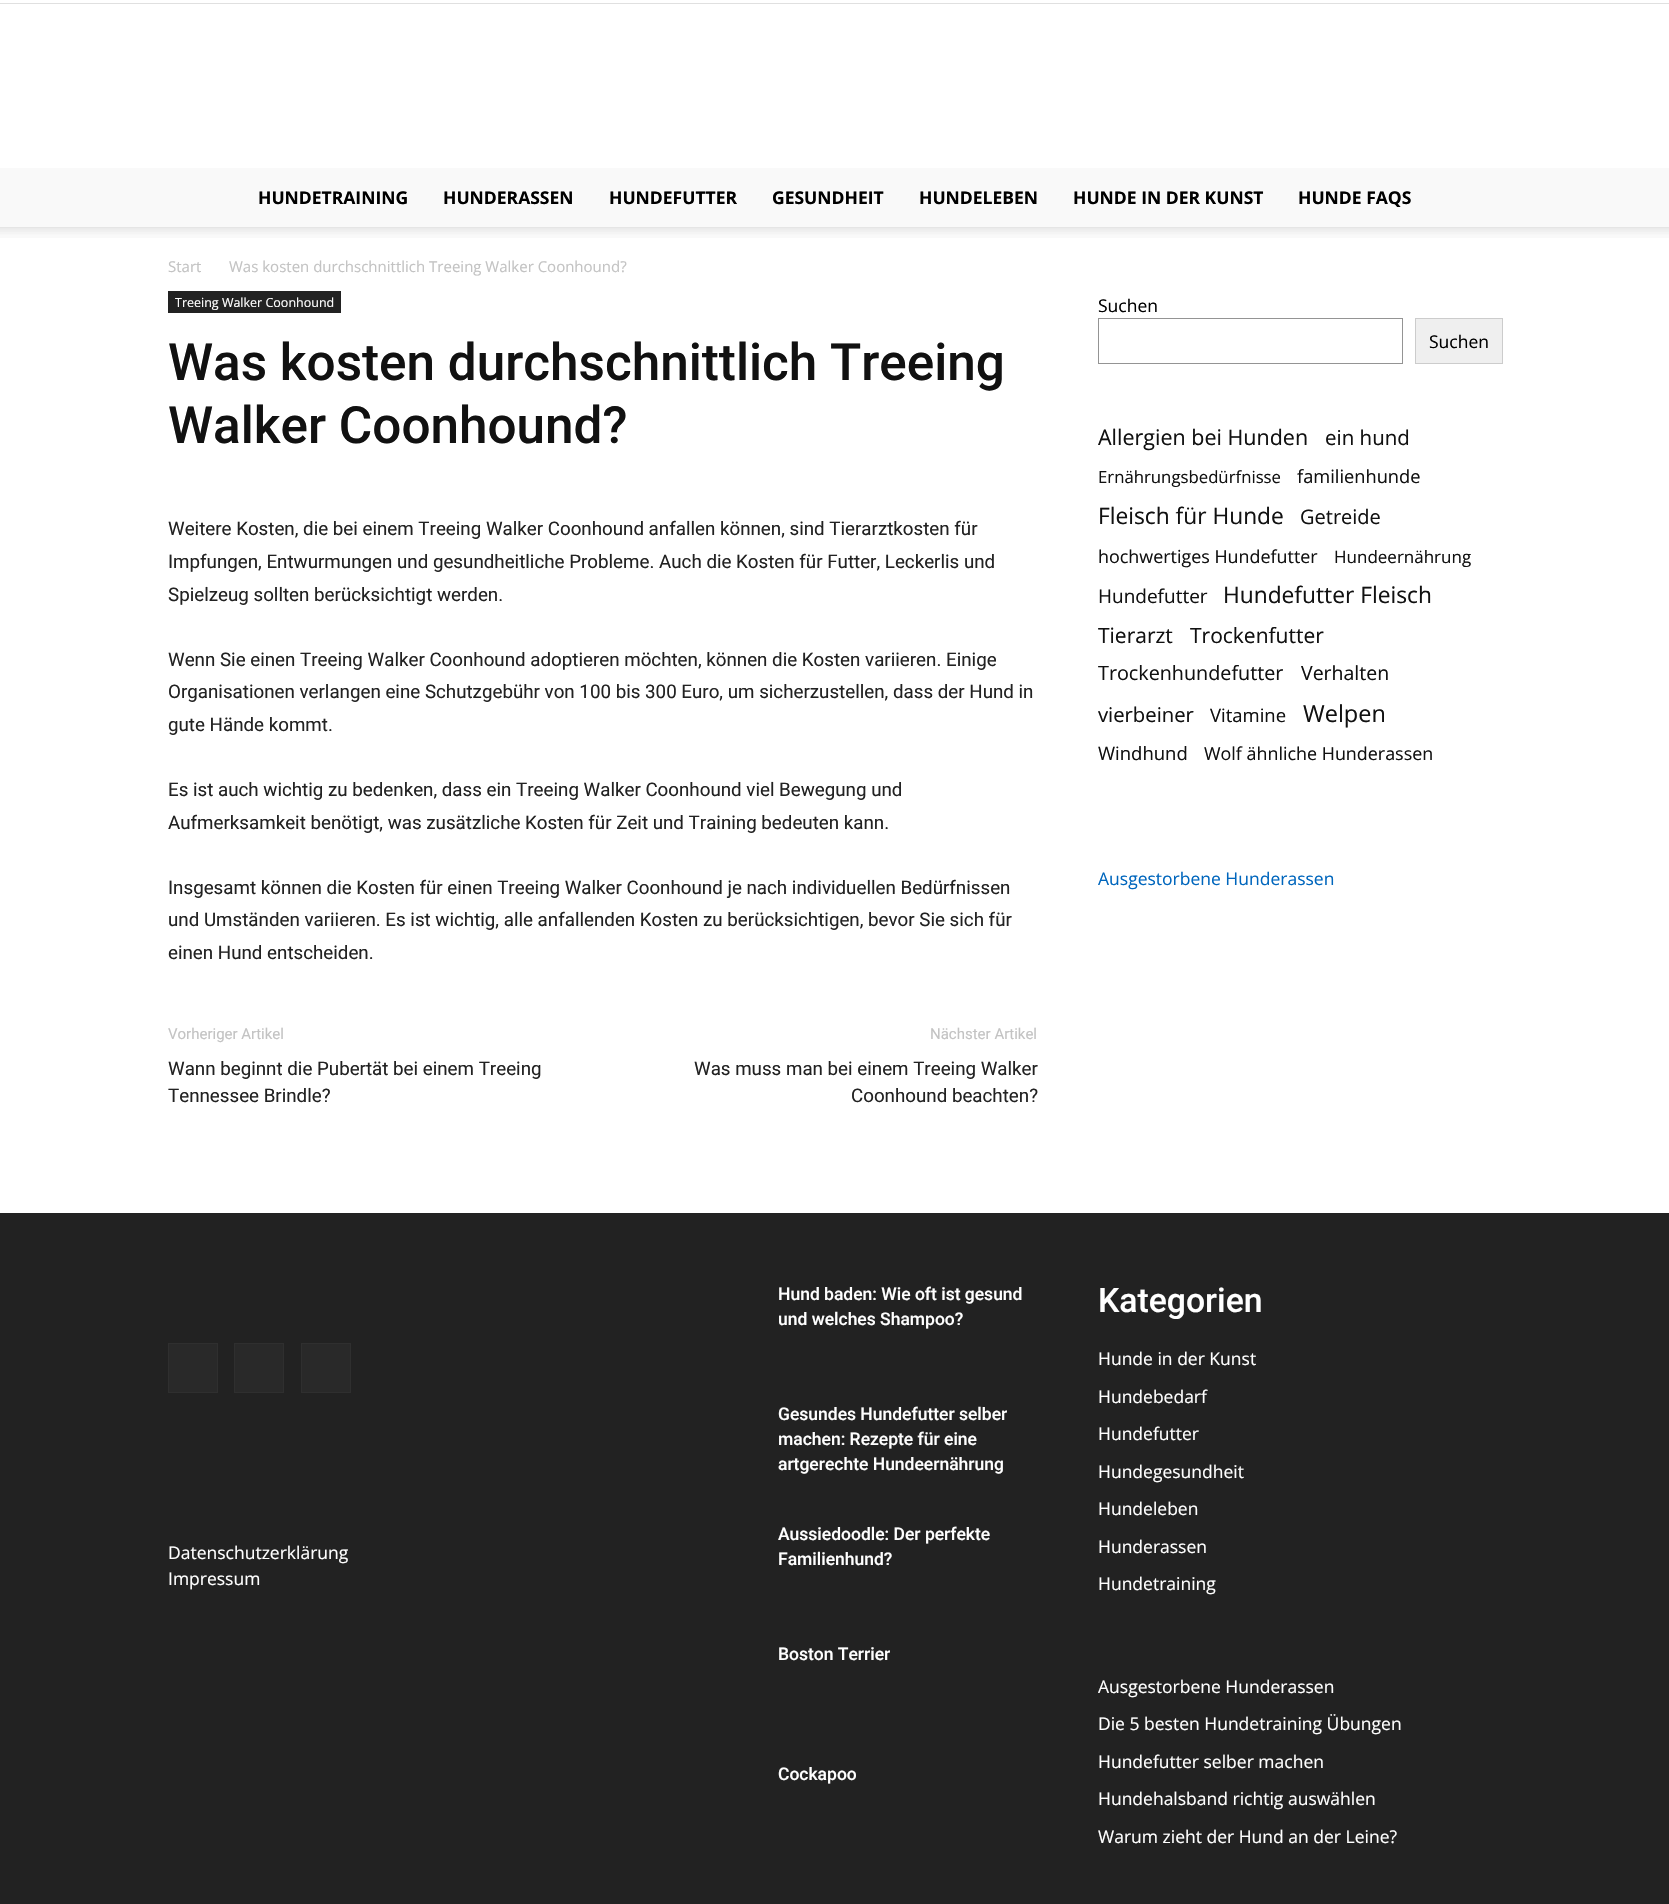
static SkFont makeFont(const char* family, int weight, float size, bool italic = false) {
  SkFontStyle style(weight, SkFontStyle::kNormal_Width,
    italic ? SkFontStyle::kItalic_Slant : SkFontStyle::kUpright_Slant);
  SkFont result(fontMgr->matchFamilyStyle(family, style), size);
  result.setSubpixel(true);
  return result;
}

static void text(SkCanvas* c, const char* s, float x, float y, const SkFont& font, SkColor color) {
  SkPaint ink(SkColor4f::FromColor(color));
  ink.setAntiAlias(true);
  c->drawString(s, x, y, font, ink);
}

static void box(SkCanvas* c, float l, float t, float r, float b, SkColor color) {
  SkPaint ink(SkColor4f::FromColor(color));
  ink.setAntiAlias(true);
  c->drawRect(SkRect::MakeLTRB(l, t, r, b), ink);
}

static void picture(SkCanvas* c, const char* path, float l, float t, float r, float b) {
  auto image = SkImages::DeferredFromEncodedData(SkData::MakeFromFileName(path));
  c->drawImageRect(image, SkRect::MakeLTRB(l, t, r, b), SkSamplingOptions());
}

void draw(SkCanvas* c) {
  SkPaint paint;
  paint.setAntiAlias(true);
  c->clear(0xffffffff);
  box(c, 0, 3, 1669, 4, 0xffe0e0e0);
  box(c, 0, 168, 1669, 228, 0xfff9f9f9);
  SkFont face1 = makeFont("Open Sans", 700, 17.5f);
  text(c, "HUNDETRAINING", 258, 204, face1, 0xff000000);
  text(c, "HUNDERASSEN", 443, 204, face1, 0xff000000);
  text(c, "HUNDEFUTTER", 609, 204, face1, 0xff000000);
  text(c, "GESUNDHEIT", 772, 204, face1, 0xff000000);
  text(c, "HUNDELEBEN", 919, 204, face1, 0xff000000);
  text(c, "HUNDE IN DER KUNST", 1073, 204, face1, 0xff000000);
  text(c, "HUNDE FAQS", 1298, 204, face1, 0xff000000);
  picture(c, "img_01.png", 0, 227, 1669, 238);
  SkFont face2 = makeFont("Open Sans", 400, 15);
  text(c, "Start", 168, 272, face2, 0xffc3c3c3);
  text(c, "Was kosten durchschnittlich Treeing Walker Coonhound?", 229, 272, face2, 0xffc3c3c3);
  box(c, 168, 291, 341, 313, 0xff222222);
  SkFont face3 = makeFont("Open Sans", 400, 12.5f);
  text(c, "Treeing Walker Coonhound", 175, 307, face3, 0xffffffff);
  SkFont face4 = makeFont("Roboto", 500, 51.25f);
  text(c, "Was kosten durchschnittlich Treeing", 168, 380, face4, 0xff111111);
  text(c, "Walker Coonhound?", 168, 443, face4, 0xff111111);
  SkFont face5 = makeFont("Roboto", 400, 18.75f);
  text(c, "Weitere Kosten, die bei einem Treeing Walker Coonhound anfallen können, sind Tierarztkosten für", 168, 535, face5, 0xff222222);
  text(c, "Impfungen, Entwurmungen und gesundheitliche Probleme. Auch die Kosten für Futter, Leckerlis und", 168, 568, face5, 0xff222222);
  text(c, "Spielzeug sollten berücksichtigt werden.", 168, 601, face5, 0xff222222);
  text(c, "Wenn Sie einen Treeing Walker Coonhound adoptieren möchten, können die Kosten variieren. Einige", 168, 666, face5, 0xff222222);
  text(c, "Organisationen verlangen eine Schutzgebühr von 100 bis 300 Euro, um sicherzustellen, dass der Hund in", 168, 698, face5, 0xff222222);
  text(c, "gute Hände kommt.", 168, 731, face5, 0xff222222);
  text(c, "Es ist auch wichtig zu bedenken, dass ein Treeing Walker Coonhound viel Bewegung und", 168, 796, face5, 0xff222222);
  text(c, "Aufmerksamkeit benötigt, was zusätzliche Kosten für Zeit und Training bedeuten kann.", 168, 829, face5, 0xff222222);
  text(c, "Insgesamt können die Kosten für einen Treeing Walker Coonhound je nach individuellen Bedürfnissen", 168, 894, face5, 0xff222222);
  text(c, "und Umständen variieren. Es ist wichtig, alle anfallenden Kosten zu berücksichtigen, bevor Sie sich für", 168, 926, face5, 0xff222222);
  text(c, "einen Hund entscheiden.", 168, 959, face5, 0xff222222);
  SkFont face6 = makeFont("Roboto", 400, 15);
  text(c, "Vorheriger Artikel", 168, 1039, face6, 0xffc3c3c3);
  text(c, "Wann beginnt die Pubertät bei einem Treeing", 168, 1075, face5, 0xff222222);
  text(c, "Tennessee Brindle?", 168, 1102, face5, 0xff222222);
  text(c, "Nächster Artikel", 930, 1039, face6, 0xffc3c3c3);
  text(c, "Was muss man bei einem Treeing Walker", 694, 1075, face5, 0xff222222);
  text(c, "Coonhound beachten?", 851, 1102, face5, 0xff222222);
  SkFont face7 = makeFont("Open Sans", 400, 17.5f);
  text(c, "Suchen", 1098, 312, face7, 0xff000000);
  paint.setStyle(SkPaint::kStroke_Style);
  paint.setStrokeWidth(1);
  paint.setColor(0xff949494);
  c->drawRect(SkRect::MakeLTRB(1098.5f, 318.5f, 1402.5f, 363.5f), paint);
  paint.setStyle(SkPaint::kFill_Style);
  paint.setColor(0xffefefef);
  c->drawRect(SkRect::MakeLTRB(1415.5f, 318.5f, 1502.5f, 363.5f), paint);
  paint.setStyle(SkPaint::kStroke_Style);
  paint.setColor(0xffcccccc);
  c->drawRect(SkRect::MakeLTRB(1415.5f, 318.5f, 1502.5f, 363.5f), paint);
  text(c, "Suchen", 1429, 348, face7, 0xff000000);
  SkFont face8 = makeFont("Open Sans", 400, 21.5f);
  text(c, "Allergien bei Hunden", 1098, 445, face8, 0xff111111);
  SkFont face9 = makeFont("Open Sans", 400, 20.5f);
  text(c, "ein hund", 1325, 445, face9, 0xff111111);
  SkFont face10 = makeFont("Open Sans", 400, 16.75f);
  text(c, "Ernährungsbedürfnisse", 1098, 483, face10, 0xff111111);
  SkFont face11 = makeFont("Open Sans", 400, 18.25f);
  text(c, "familienhunde", 1297, 483, face11, 0xff111111);
  SkFont face12 = makeFont("Open Sans", 400, 22.75f);
  text(c, "Fleisch für Hunde", 1098, 524, face12, 0xff111111);
  SkFont face13 = makeFont("Open Sans", 400, 20);
  text(c, "Getreide", 1300, 524, face13, 0xff111111);
  SkFont face14 = makeFont("Open Sans", 400, 17.9f);
  text(c, "hochwertiges Hundefutter", 1098, 563, face14, 0xff111111);
  SkFont face15 = makeFont("Open Sans", 400, 17);
  text(c, "Hundeernährung", 1334, 563, face15, 0xff111111);
  SkFont face16 = makeFont("Open Sans", 400, 19);
  text(c, "Hundefutter", 1098, 603, face16, 0xff111111);
  text(c, "Hundefutter Fleisch", 1223, 603, face12, 0xff111111);
  SkFont face17 = makeFont("Open Sans", 400, 21);
  text(c, "Tierarzt", 1098, 643, face17, 0xff111111);
  text(c, "Trockenfutter", 1190, 643, face17, 0xff111111);
  SkFont face18 = makeFont("Open Sans", 400, 19.75f);
  text(c, "Trockenhundefutter", 1098, 680, face18, 0xff111111);
  SkFont face19 = makeFont("Open Sans", 400, 19.5f);
  text(c, "Verhalten", 1301, 680, face19, 0xff111111);
  SkFont face20 = makeFont("Open Sans", 400, 20.25f);
  text(c, "vierbeiner", 1098, 722, face20, 0xff111111);
  SkFont face21 = makeFont("Open Sans", 400, 18.5f);
  text(c, "Vitamine", 1210, 722, face21, 0xff111111);
  SkFont face22 = makeFont("Open Sans", 400, 23.5f);
  text(c, "Welpen", 1303, 722, face22, 0xff111111);
  text(c, "Windhund", 1098, 760, face21, 0xff111111);
  text(c, "Wolf ähnliche Hunderassen", 1204, 760, face14, 0xff111111);
  text(c, "Ausgestorbene Hunderassen", 1098, 885, face7, 0xff0066bd);
  box(c, 0, 1213, 1669, 1904, 0xff222222);
  paint.setStyle(SkPaint::kFill_Style);
  paint.setColor(0xff292929);
  c->drawRect(SkRect::MakeLTRB(168.5f, 1343.5f, 217.5f, 1392.5f), paint);
  paint.setStyle(SkPaint::kStroke_Style);
  paint.setColor(0xff2f2f2f);
  c->drawRect(SkRect::MakeLTRB(168.5f, 1343.5f, 217.5f, 1392.5f), paint);
  paint.setStyle(SkPaint::kFill_Style);
  paint.setColor(0xff292929);
  c->drawRect(SkRect::MakeLTRB(234.5f, 1343.5f, 283.5f, 1392.5f), paint);
  paint.setStyle(SkPaint::kStroke_Style);
  paint.setColor(0xff2f2f2f);
  c->drawRect(SkRect::MakeLTRB(234.5f, 1343.5f, 283.5f, 1392.5f), paint);
  paint.setStyle(SkPaint::kFill_Style);
  paint.setColor(0xff292929);
  c->drawRect(SkRect::MakeLTRB(301.5f, 1343.5f, 350.5f, 1392.5f), paint);
  paint.setStyle(SkPaint::kStroke_Style);
  paint.setColor(0xff2f2f2f);
  c->drawRect(SkRect::MakeLTRB(301.5f, 1343.5f, 350.5f, 1392.5f), paint);
  text(c, "Datenschutzerklärung", 168, 1559, face7, 0xffffffff);
  text(c, "Impressum", 168, 1585, face7, 0xffffffff);
  SkFont face23 = makeFont("Roboto", 500, 17.5f);
  text(c, "Hund baden: Wie oft ist gesund", 778, 1300, face23, 0xffffffff);
  text(c, "und welches Shampoo?", 778, 1325, face23, 0xffffffff);
  text(c, "Gesundes Hundefutter selber", 778, 1420, face23, 0xffffffff);
  text(c, "machen: Rezepte für eine", 778, 1445, face23, 0xffffffff);
  text(c, "artgerechte Hundeernährung", 778, 1470, face23, 0xffffffff);
  text(c, "Aussiedoodle: Der perfekte", 778, 1540, face23, 0xffffffff);
  text(c, "Familienhund?", 778, 1565, face23, 0xffffffff);
  text(c, "Boston Terrier", 778, 1660, face23, 0xffffffff);
  text(c, "Cockapoo", 778, 1780, face23, 0xffffffff);
  SkFont face24 = makeFont("Roboto", 500, 33.75f);
  text(c, "Kategorien", 1098, 1312, face24, 0xffffffff);
  text(c, "Hunde in der Kunst", 1098, 1365, face7, 0xffffffff);
  text(c, "Hundebedarf", 1098, 1403, face7, 0xffffffff);
  text(c, "Hundefutter", 1098, 1440, face7, 0xffffffff);
  text(c, "Hundegesundheit", 1098, 1478, face7, 0xffffffff);
  text(c, "Hundeleben", 1098, 1515, face7, 0xffffffff);
  text(c, "Hunderassen", 1098, 1553, face7, 0xffffffff);
  text(c, "Hundetraining", 1098, 1590, face7, 0xffffffff);
  text(c, "Ausgestorbene Hunderassen", 1098, 1693, face7, 0xffffffff);
  text(c, "Die 5 besten Hundetraining Übungen", 1098, 1730, face7, 0xffffffff);
  text(c, "Hundefutter selber machen", 1098, 1768, face7, 0xffffffff);
  text(c, "Hundehalsband richtig auswählen", 1098, 1805, face7, 0xffffffff);
  text(c, "Warum zieht der Hund an der Leine?", 1098, 1843, face7, 0xffffffff);
}
